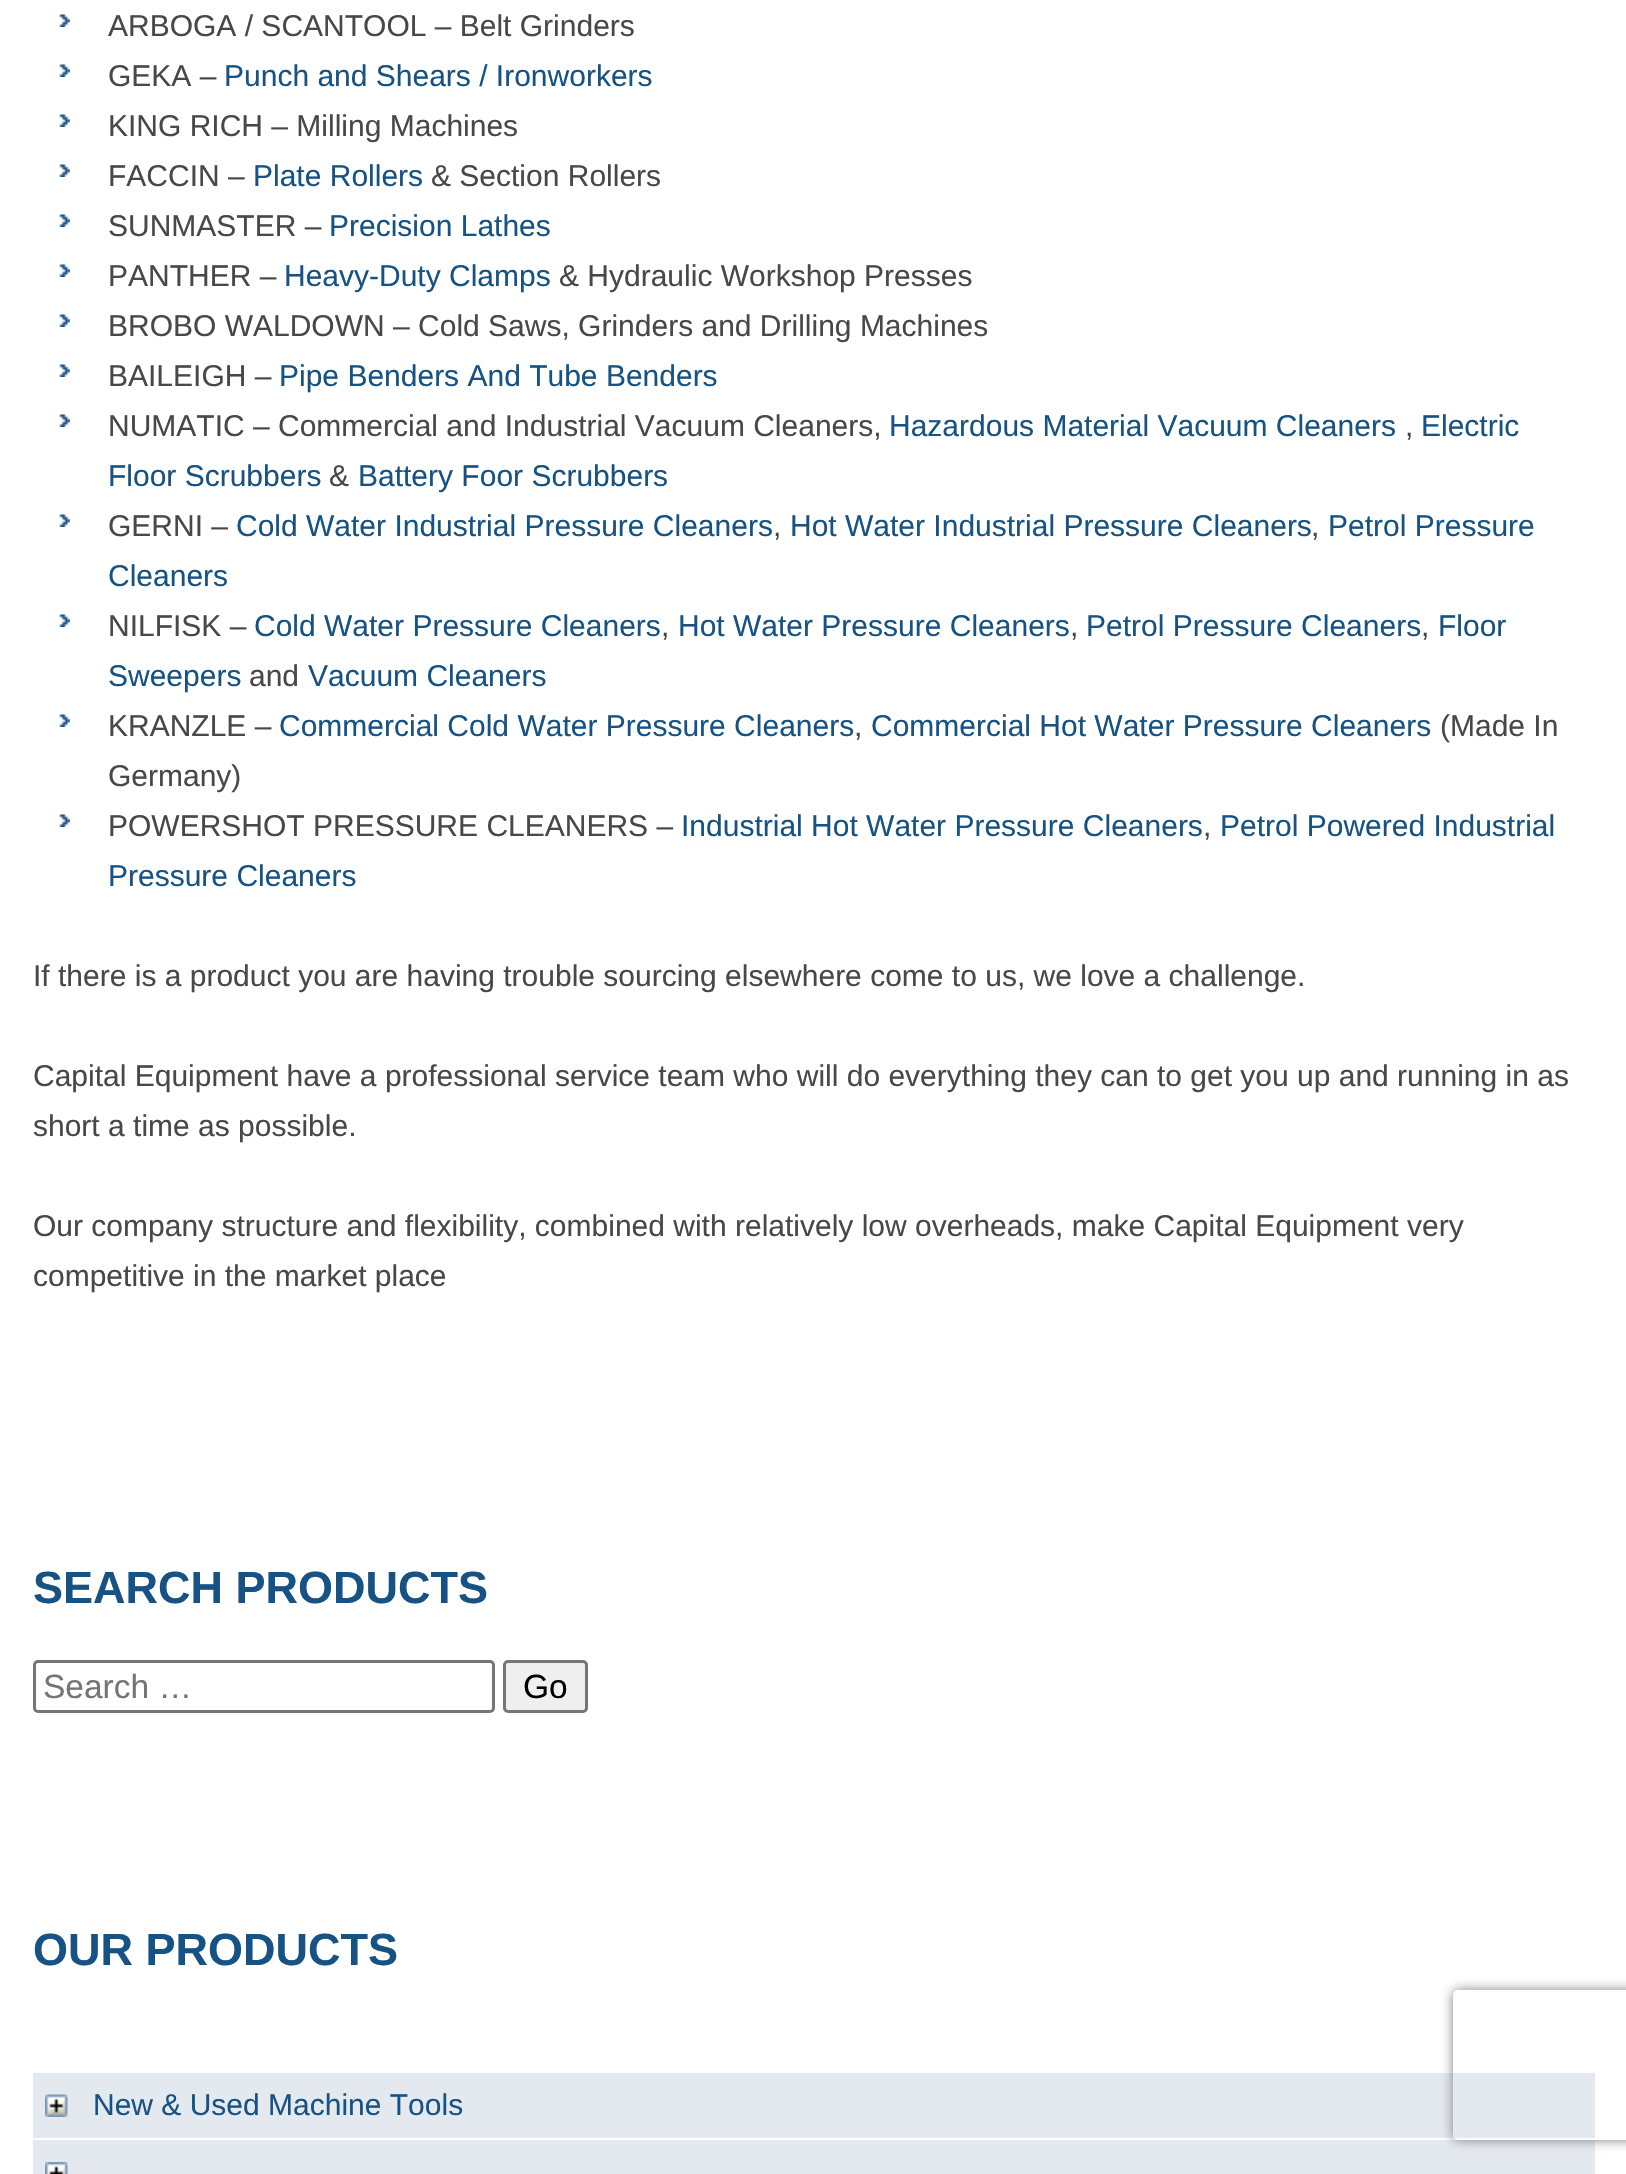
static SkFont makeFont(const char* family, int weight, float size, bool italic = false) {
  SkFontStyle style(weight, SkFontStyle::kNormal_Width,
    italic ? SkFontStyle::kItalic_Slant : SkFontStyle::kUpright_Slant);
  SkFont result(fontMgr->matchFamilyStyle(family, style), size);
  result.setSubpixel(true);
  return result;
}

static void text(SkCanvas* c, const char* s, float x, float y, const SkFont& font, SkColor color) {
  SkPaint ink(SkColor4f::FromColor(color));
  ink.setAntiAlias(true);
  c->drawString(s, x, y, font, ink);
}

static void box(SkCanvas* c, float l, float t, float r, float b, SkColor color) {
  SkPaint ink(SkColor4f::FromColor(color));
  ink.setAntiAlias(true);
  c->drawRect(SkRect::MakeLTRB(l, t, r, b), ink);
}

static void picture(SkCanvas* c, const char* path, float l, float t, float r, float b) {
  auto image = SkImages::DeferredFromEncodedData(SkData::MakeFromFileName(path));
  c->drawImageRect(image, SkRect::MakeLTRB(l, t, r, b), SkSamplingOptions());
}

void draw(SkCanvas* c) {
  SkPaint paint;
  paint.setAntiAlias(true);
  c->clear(0xffffffff);
  picture(c, "img_01.png", 59, 14, 70, 27);
  SkFont face1 = makeFont("Liberation Sans", 400, 30);
  text(c, "ARBOGA / SCANTOOL – Belt Grinders", 108, 36, face1, 0xff494849);
  picture(c, "img_02.png", 59, 64, 70, 77);
  text(c, "GEKA –", 108, 86, face1, 0xff494849);
  text(c, "Punch and Shears / Ironworkers", 224, 86, face1, 0xff165384);
  picture(c, "img_01.png", 59, 114, 70, 127);
  text(c, "KING RICH – Milling Machines", 108, 136, face1, 0xff494849);
  picture(c, "img_02.png", 59, 164, 70, 177);
  text(c, "FACCIN –", 108, 186, face1, 0xff494849);
  text(c, "Plate Rollers", 253, 186, face1, 0xff165384);
  text(c, "& Section Rollers", 431, 186, face1, 0xff494849);
  picture(c, "img_02.png", 59, 214, 70, 227);
  text(c, "SUNMASTER –", 108, 236, face1, 0xff494849);
  text(c, "Precision Lathes", 329, 236, face1, 0xff165384);
  picture(c, "img_02.png", 59, 264, 70, 277);
  text(c, "PANTHER –", 108, 286, face1, 0xff494849);
  text(c, "Heavy-Duty Clamps", 284, 286, face1, 0xff165384);
  text(c, "& Hydraulic Workshop Presses", 559, 286, face1, 0xff494849);
  picture(c, "img_02.png", 59, 314, 70, 327);
  text(c, "BROBO WALDOWN – Cold Saws, Grinders and Drilling Machines", 108, 336, face1, 0xff494849);
  picture(c, "img_02.png", 59, 364, 70, 377);
  text(c, "BAILEIGH –", 108, 386, face1, 0xff494849);
  text(c, "Pipe Benders And Tube Benders", 279, 386, face1, 0xff165384);
  picture(c, "img_02.png", 59, 414, 70, 427);
  text(c, "NUMATIC – Commercial and Industrial Vacuum Cleaners,", 108, 436, face1, 0xff494849);
  text(c, "Hazardous Material Vacuum Cleaners", 889, 436, face1, 0xff165384);
  text(c, ",", 1405, 436, face1, 0xff494849);
  text(c, "Electric", 1421, 436, face1, 0xff165384);
  text(c, "Floor Scrubbers", 108, 486, face1, 0xff165384);
  text(c, "&", 329, 486, face1, 0xff494849);
  text(c, "Battery Foor Scrubbers", 358, 486, face1, 0xff165384);
  picture(c, "img_02.png", 59, 514, 70, 527);
  text(c, "GERNI –", 108, 536, face1, 0xff494849);
  text(c, "Cold Water Industrial Pressure Cleaners", 236, 536, face1, 0xff165384);
  text(c, ",", 773, 536, face1, 0xff494849);
  text(c, "Hot Water Industrial Pressure Cleaners", 790, 536, face1, 0xff165384);
  text(c, ",", 1311, 536, face1, 0xff494849);
  text(c, "Petrol Pressure", 1328, 536, face1, 0xff165384);
  text(c, "Cleaners", 108, 586, face1, 0xff165384);
  picture(c, "img_02.png", 59, 614, 70, 627);
  text(c, "NILFISK –", 108, 636, face1, 0xff494849);
  text(c, "Cold Water Pressure Cleaners", 254, 636, face1, 0xff165384);
  text(c, ",", 661, 636, face1, 0xff494849);
  text(c, "Hot Water Pressure Cleaners", 678, 636, face1, 0xff165384);
  text(c, ",", 1070, 636, face1, 0xff494849);
  text(c, "Petrol Pressure Cleaners", 1086, 636, face1, 0xff165384);
  text(c, ",", 1421, 636, face1, 0xff494849);
  text(c, "Floor", 1438, 636, face1, 0xff165384);
  text(c, "Sweepers", 108, 686, face1, 0xff165384);
  text(c, "and", 249, 686, face1, 0xff494849);
  text(c, "Vacuum Cleaners", 308, 686, face1, 0xff165384);
  picture(c, "img_02.png", 59, 714, 70, 727);
  text(c, "KRANZLE –", 108, 736, face1, 0xff494849);
  text(c, "Commercial Cold Water Pressure Cleaners", 279, 736, face1, 0xff165384);
  text(c, ",", 854, 736, face1, 0xff494849);
  text(c, "Commercial Hot Water Pressure Cleaners", 871, 736, face1, 0xff165384);
  text(c, "(Made In", 1440, 736, face1, 0xff494849);
  text(c, "Germany)", 108, 786, face1, 0xff494849);
  picture(c, "img_02.png", 59, 814, 70, 827);
  text(c, "POWERSHOT PRESSURE CLEANERS –", 108, 836, face1, 0xff494849);
  text(c, "Industrial Hot Water Pressure Cleaners", 681, 836, face1, 0xff165384);
  text(c, ",", 1203, 836, face1, 0xff494849);
  text(c, "Petrol Powered Industrial", 1220, 836, face1, 0xff165384);
  text(c, "Pressure Cleaners", 108, 886, face1, 0xff165384);
  text(c, "If there is a product you are having trouble sourcing elsewhere come to us, we love a challenge.", 33, 986, face1, 0xff494849);
  text(c, "Capital Equipment have a professional service team who will do everything they can to get you up and running in as", 33, 1086, face1, 0xff494849);
  text(c, "short a time as possible.", 33, 1136, face1, 0xff494849);
  text(c, "Our company structure and flexibility, combined with relatively low overheads, make Capital Equipment very", 33, 1236, face1, 0xff494849);
  text(c, "competitive in the market place", 33, 1286, face1, 0xff494849);
  SkFont face2 = makeFont("Liberation Sans", 700, 45);
  text(c, "SEARCH PRODUCTS", 33, 1603, face2, 0xff165384);
  paint.setStyle(SkPaint::kStroke_Style);
  paint.setStrokeWidth(3);
  paint.setColor(0xff767676);
  c->drawRoundRect(SkRect::MakeLTRB(34.5f, 1661.5f, 493.5f, 1711.5f), 3.5f, 3.5f, paint);
  SkFont face3 = makeFont("Liberation Sans", 400, 33.5f);
  text(c, "Search …", 43, 1698, face3, 0xff757575);
  paint.setStyle(SkPaint::kFill_Style);
  paint.setColor(0xffefefef);
  c->drawRoundRect(SkRect::MakeLTRB(504.5f, 1661.5f, 586.5f, 1711.5f), 3.5f, 3.5f, paint);
  paint.setStyle(SkPaint::kStroke_Style);
  paint.setColor(0xff767676);
  c->drawRoundRect(SkRect::MakeLTRB(504.5f, 1661.5f, 586.5f, 1711.5f), 3.5f, 3.5f, paint);
  text(c, "Go", 523, 1698, face3, 0xff000000);
  text(c, "OUR PRODUCTS", 33, 1965, face2, 0xff165384);
  box(c, 33, 2073, 1595, 2138, 0xffe4e9ef);
  picture(c, "img_03.png", 45, 2094, 68, 2117);
  text(c, "New & Used Machine Tools", 93, 2115, face1, 0xff165384);
  box(c, 33, 2140, 1595, 2174, 0xffe4e9ef);
  picture(c, "img_04.png", 45, 2162, 68, 2174);
  c->save();
  c->clipPath(SkPathBuilder(SkPathFillType::kEvenOdd).moveTo(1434, 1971).lineTo(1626, 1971).lineTo(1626, 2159).lineTo(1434, 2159).close().moveTo(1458, 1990).lineTo(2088, 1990).cubicTo(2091, 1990, 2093, 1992, 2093, 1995).lineTo(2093, 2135).cubicTo(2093, 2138, 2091, 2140, 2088, 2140).lineTo(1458, 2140).cubicTo(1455, 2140, 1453, 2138, 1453, 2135).lineTo(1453, 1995).cubicTo(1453, 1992, 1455, 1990, 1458, 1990).close().detach(), true);
  paint.setStyle(SkPaint::kFill_Style);
  paint.setColor(0xff808080);
  paint.setMaskFilter(SkMaskFilter::MakeBlur(kNormal_SkBlurStyle, 6));
  c->drawRoundRect(SkRect::MakeLTRB(1453, 1990, 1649, 2140), 5, 5, paint);
  paint.setMaskFilter(nullptr);
  c->restore();
}
